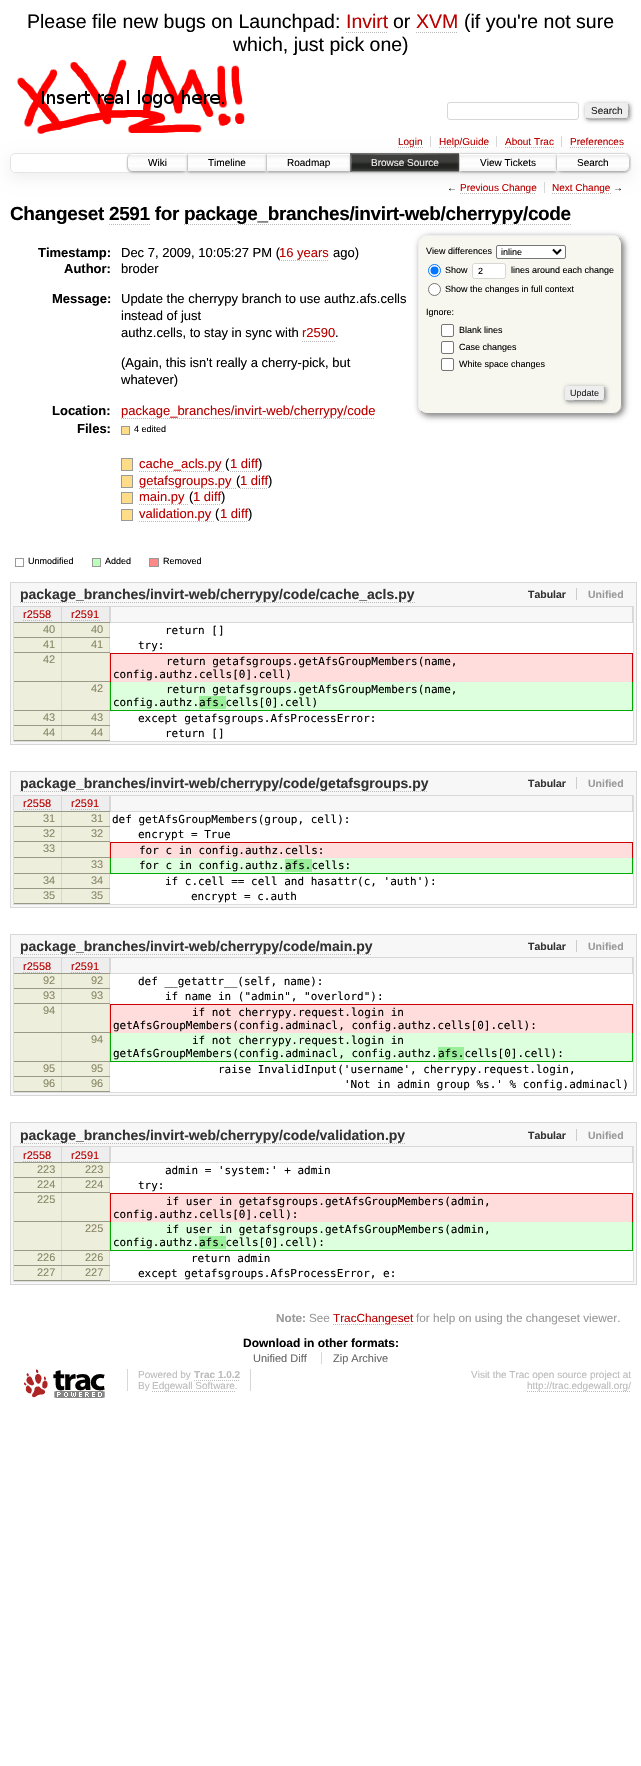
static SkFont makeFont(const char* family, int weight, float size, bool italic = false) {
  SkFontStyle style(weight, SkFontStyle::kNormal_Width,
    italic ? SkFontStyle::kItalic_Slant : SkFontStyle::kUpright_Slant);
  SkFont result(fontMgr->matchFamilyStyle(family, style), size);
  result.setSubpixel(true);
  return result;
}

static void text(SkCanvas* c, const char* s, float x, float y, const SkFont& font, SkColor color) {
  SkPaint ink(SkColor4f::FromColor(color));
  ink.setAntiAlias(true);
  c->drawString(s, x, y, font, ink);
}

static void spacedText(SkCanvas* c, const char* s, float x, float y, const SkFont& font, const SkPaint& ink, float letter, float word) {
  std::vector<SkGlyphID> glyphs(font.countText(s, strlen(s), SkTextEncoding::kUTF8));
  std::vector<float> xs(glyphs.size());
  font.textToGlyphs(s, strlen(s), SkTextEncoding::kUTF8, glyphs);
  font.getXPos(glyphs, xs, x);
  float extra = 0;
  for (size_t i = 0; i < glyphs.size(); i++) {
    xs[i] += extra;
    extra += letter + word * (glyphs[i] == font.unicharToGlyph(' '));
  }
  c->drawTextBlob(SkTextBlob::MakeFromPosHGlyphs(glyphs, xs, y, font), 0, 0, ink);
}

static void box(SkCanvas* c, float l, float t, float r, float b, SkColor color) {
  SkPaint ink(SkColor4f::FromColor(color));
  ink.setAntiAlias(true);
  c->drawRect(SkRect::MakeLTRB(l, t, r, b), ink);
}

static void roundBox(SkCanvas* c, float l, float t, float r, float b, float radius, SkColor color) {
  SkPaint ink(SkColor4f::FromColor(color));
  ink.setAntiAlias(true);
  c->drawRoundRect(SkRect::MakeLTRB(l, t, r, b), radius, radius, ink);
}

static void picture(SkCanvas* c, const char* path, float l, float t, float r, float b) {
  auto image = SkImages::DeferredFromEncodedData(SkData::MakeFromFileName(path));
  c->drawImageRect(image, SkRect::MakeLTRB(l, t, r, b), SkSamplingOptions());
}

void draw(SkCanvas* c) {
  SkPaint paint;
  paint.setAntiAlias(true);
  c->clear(0xffffffff);
  SkFont face1 = makeFont("Liberation Sans", 400, 19.5f);
  text(c, "Please file new bugs on Launchpad:", 27, 28, face1, 0xff000000);
  text(c, "Invirt", 346, 28, face1, 0xffbb0000);
  paint.setStyle(SkPaint::kStroke_Style);
  paint.setStrokeWidth(1);
  paint.setColor(0xffbbbbbb);
  paint.setPathEffect(SkDashPathEffect::Make({{1, 1}}, 0));
  c->drawPath(SkPathBuilder().moveTo(346, 32.5f).lineTo(388, 32.5f).detach(), paint);
  paint.setPathEffect(nullptr);
  text(c, "or", 393, 28, face1, 0xff000000);
  text(c, "XVM", 416, 28, face1, 0xffbb0000);
  paint.setPathEffect(SkDashPathEffect::Make({{1, 1}}, 0));
  c->drawPath(SkPathBuilder().moveTo(416, 32.5f).lineTo(458, 32.5f).detach(), paint);
  paint.setPathEffect(nullptr);
  text(c, "(if you're not sure", 464, 28, face1, 0xff000000);
  text(c, "which, just pick one)", 233, 51, face1, 0xff000000);
  picture(c, "img_01.png", 17, 56, 245, 134);
  paint.setColor(0xffd7d7d7);
  c->drawRoundRect(SkRect::MakeLTRB(447.5f, 102.5f, 578.5f, 119.5f), 2.5f, 2.5f, paint);
  paint.setStyle(SkPaint::kFill_Style);
  paint.setColor(0xff888888);
  paint.setMaskFilter(SkMaskFilter::MakeBlur(kNormal_SkBlurStyle, 2));
  c->drawRoundRect(SkRect::MakeLTRB(586, 104, 630, 120), 3, 3, paint);
  paint.setMaskFilter(nullptr);
  roundBox(c, 585, 103, 629, 119, 3, 0xffeeeeee);
  paint.setStyle(SkPaint::kStroke_Style);
  paint.setColor(0xff9f9f9f);
  c->drawPath(SkPathBuilder().moveTo(628, 104).cubicTo(629.5f, 106, 628.5f, 109, 628.5f, 111).cubicTo(628.5f, 119.5f, 629, 118.5f, 619.5f, 118.5f).lineTo(607, 118.5f).cubicTo(604, 118.5f, 588, 119.5f, 586, 118).detach(), paint);
  paint.setColor(0xffeeeeee);
  c->drawPath(SkPathBuilder().moveTo(586, 118).cubicTo(584.5f, 116, 585.5f, 113, 585.5f, 111).cubicTo(585.5f, 102.5f, 585, 103.5f, 594.5f, 103.5f).lineTo(607, 103.5f).cubicTo(610, 103.5f, 626, 102.5f, 628, 104).detach(), paint);
  SkFont face2 = makeFont("Liberation Sans", 400, 10);
  text(c, "Search", 591, 114, face2, 0xff222222);
  c->save();
  c->clipPath(SkPathBuilder(SkPathFillType::kEvenOdd).moveTo(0, 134).lineTo(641, 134).lineTo(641, 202).lineTo(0, 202).close().moveTo(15, 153).lineTo(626, 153).cubicTo(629, 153, 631, 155, 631, 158).lineTo(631, 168).cubicTo(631, 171, 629, 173, 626, 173).lineTo(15, 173).cubicTo(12, 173, 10, 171, 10, 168).lineTo(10, 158).cubicTo(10, 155, 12, 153, 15, 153).close().detach(), true);
  paint.setStyle(SkPaint::kFill_Style);
  paint.setMaskFilter(SkMaskFilter::MakeBlur(kNormal_SkBlurStyle, 7.5f));
  c->drawRoundRect(SkRect::MakeLTRB(10, 158, 631, 178), 5, 5, paint);
  paint.setMaskFilter(nullptr);
  c->restore();
  box(c, 430, 136, 431, 147, 0xffd7d7d7);
  paint.setStyle(SkPaint::kStroke_Style);
  paint.setColor(0xffbbbbbb);
  paint.setPathEffect(SkDashPathEffect::Make({{1, 1}}, 0));
  c->drawPath(SkPathBuilder().moveTo(398, 147.5f).lineTo(423, 147.5f).detach(), paint);
  paint.setPathEffect(nullptr);
  text(c, "Login", 398, 145, face2, 0xffbb0000);
  box(c, 496, 136, 497, 147, 0xffd7d7d7);
  paint.setPathEffect(SkDashPathEffect::Make({{1, 1}}, 0));
  c->drawPath(SkPathBuilder().moveTo(439, 147.5f).lineTo(489, 147.5f).detach(), paint);
  paint.setPathEffect(nullptr);
  text(c, "Help/Guide", 439, 145, face2, 0xffbb0000);
  box(c, 561, 136, 562, 147, 0xffd7d7d7);
  text(c, "About Trac", 505, 145, face2, 0xffbb0000);
  paint.setPathEffect(SkDashPathEffect::Make({{1, 1}}, 0));
  c->drawPath(SkPathBuilder().moveTo(505, 147.5f).lineTo(554, 147.5f).detach(), paint);
  paint.setPathEffect(nullptr);
  text(c, "Preferences", 570, 145, face2, 0xffbb0000);
  paint.setPathEffect(SkDashPathEffect::Make({{1, 1}}, 0));
  c->drawPath(SkPathBuilder().moveTo(570, 147.5f).lineTo(624, 147.5f).detach(), paint);
  paint.setPathEffect(nullptr);
  paint.setColor(0xffe4e4e4);
  c->drawRoundRect(SkRect::MakeLTRB(10.5f, 153.5f, 630.5f, 172.5f), 4.5f, 4.5f, paint);
  paint.setStyle(SkPaint::kFill_Style);
  paint.setColor(0xffffffff);
  c->drawPath(SkPathBuilder().moveTo(132, 153).lineTo(188, 153).lineTo(188, 172).lineTo(132, 172).cubicTo(129, 172, 127, 170, 127, 167).lineTo(127, 158).cubicTo(127, 155, 129, 153, 132, 153).close().detach(), paint);
  picture(c, "img_02.png", 127, 155, 187, 172);
  paint.setStyle(SkPaint::kStroke_Style);
  paint.setColor(0xffe4e4e4);
  c->drawPath(SkPathBuilder().moveTo(132, 153.5f).lineTo(187.5f, 153.5f).lineTo(187.5f, 171.5f).lineTo(132, 171.5f).cubicTo(129.5f, 171.5f, 127.5f, 169.5f, 127.5f, 167).lineTo(127.5f, 158).cubicTo(127.5f, 155.5f, 129.5f, 153.5f, 132, 153.5f).close().detach(), paint);
  c->save();
  c->clipPath(SkPathBuilder(SkPathFillType::kEvenOdd).moveTo(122, 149).lineTo(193, 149).lineTo(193, 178).lineTo(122, 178).close().moveTo(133, 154).lineTo(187, 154).lineTo(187, 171).lineTo(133, 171).cubicTo(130, 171, 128, 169, 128, 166).lineTo(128, 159).cubicTo(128, 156, 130, 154, 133, 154).close().detach(), true);
  paint.setStyle(SkPaint::kFill_Style);
  paint.setColor(0xff999999);
  paint.setMaskFilter(SkMaskFilter::MakeBlur(kNormal_SkBlurStyle, 1.5f));
  c->drawRoundRect(SkRect::MakeLTRB(128, 155, 187, 172), 5, 5, paint);
  paint.setMaskFilter(nullptr);
  c->restore();
  text(c, "Wiki", 148, 166, face2, 0xff000000);
  box(c, 188, 156, 190, 171, 0xffffffff);
  picture(c, "img_03.png", 188, 155, 266, 171);
  paint.setStyle(SkPaint::kStroke_Style);
  paint.setColor(0xffe4e4e4);
  c->drawRect(SkRect::MakeLTRB(187.5f, 153.5f, 266.5f, 171.5f), paint);
  c->save();
  c->clipPath(SkPathBuilder(SkPathFillType::kEvenOdd).moveTo(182, 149).lineTo(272, 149).lineTo(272, 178).lineTo(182, 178).close().moveTo(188, 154).lineTo(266, 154).lineTo(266, 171).lineTo(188, 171).close().detach(), true);
  paint.setStyle(SkPaint::kFill_Style);
  paint.setColor(0xff999999);
  paint.setMaskFilter(SkMaskFilter::MakeBlur(kNormal_SkBlurStyle, 1.5f));
  c->drawRect(SkRect::MakeLTRB(188, 155, 266, 172), paint);
  paint.setMaskFilter(nullptr);
  c->restore();
  text(c, "Timeline", 208, 166, face2, 0xff000000);
  box(c, 267, 154, 269, 171, 0xffffffff);
  picture(c, "img_04.png", 267, 155, 350, 171);
  paint.setStyle(SkPaint::kStroke_Style);
  paint.setColor(0xffe4e4e4);
  c->drawRect(SkRect::MakeLTRB(266.5f, 153.5f, 350.5f, 171.5f), paint);
  c->save();
  c->clipPath(SkPathBuilder(SkPathFillType::kEvenOdd).moveTo(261, 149).lineTo(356, 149).lineTo(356, 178).lineTo(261, 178).close().moveTo(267, 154).lineTo(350, 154).lineTo(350, 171).lineTo(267, 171).close().detach(), true);
  paint.setStyle(SkPaint::kFill_Style);
  paint.setColor(0xff999999);
  paint.setMaskFilter(SkMaskFilter::MakeBlur(kNormal_SkBlurStyle, 1.5f));
  c->drawRect(SkRect::MakeLTRB(267, 155, 350, 172), paint);
  paint.setMaskFilter(nullptr);
  c->restore();
  text(c, "Roadmap", 287, 166, face2, 0xff000000);
  paint.setStyle(SkPaint::kStroke_Style);
  paint.setColor(0xff666666);
  c->drawRect(SkRect::MakeLTRB(350.5f, 153.5f, 459.5f, 171.5f), paint);
  paint.setStyle(SkPaint::kFill_Style);
  paint.setColor(0xff999999);
  paint.setMaskFilter(SkMaskFilter::MakeBlur(kNormal_SkBlurStyle, 1.5f));
  c->drawRect(SkRect::MakeLTRB(351, 155, 459, 172), paint);
  paint.setMaskFilter(nullptr);
  box(c, 351, 154, 459, 171, 0xff000000);
  picture(c, "img_05.png", 351, 154, 459, 171);
  text(c, "Browse Source", 371, 166, face2, 0xffeeeeee);
  box(c, 460, 154, 462, 171, 0xffffffff);
  picture(c, "img_06.png", 460, 155, 556, 171);
  paint.setStyle(SkPaint::kStroke_Style);
  paint.setColor(0xffe4e4e4);
  c->drawRect(SkRect::MakeLTRB(459.5f, 153.5f, 556.5f, 171.5f), paint);
  c->save();
  c->clipPath(SkPathBuilder(SkPathFillType::kEvenOdd).moveTo(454, 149).lineTo(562, 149).lineTo(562, 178).lineTo(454, 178).close().moveTo(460, 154).lineTo(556, 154).lineTo(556, 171).lineTo(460, 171).close().detach(), true);
  paint.setStyle(SkPaint::kFill_Style);
  paint.setColor(0xff999999);
  paint.setMaskFilter(SkMaskFilter::MakeBlur(kNormal_SkBlurStyle, 1.5f));
  c->drawRect(SkRect::MakeLTRB(460, 155, 556, 172), paint);
  paint.setMaskFilter(nullptr);
  c->restore();
  text(c, "View Tickets", 480, 166, face2, 0xff000000);
  paint.setColor(0xffffffff);
  c->drawPath(SkPathBuilder().moveTo(556, 153).lineTo(625, 153).cubicTo(628, 153, 630, 155, 630, 158).lineTo(630, 167).cubicTo(630, 170, 628, 172, 625, 172).lineTo(556, 172).close().detach(), paint);
  picture(c, "img_07.png", 557, 155, 630, 172);
  paint.setStyle(SkPaint::kStroke_Style);
  paint.setColor(0xffe4e4e4);
  c->drawPath(SkPathBuilder().moveTo(556.5f, 153.5f).lineTo(625, 153.5f).cubicTo(627.5f, 153.5f, 629.5f, 155.5f, 629.5f, 158).lineTo(629.5f, 167).cubicTo(629.5f, 169.5f, 627.5f, 171.5f, 625, 171.5f).lineTo(556.5f, 171.5f).close().detach(), paint);
  c->save();
  c->clipPath(SkPathBuilder(SkPathFillType::kEvenOdd).moveTo(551, 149).lineTo(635, 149).lineTo(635, 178).lineTo(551, 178).close().moveTo(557, 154).lineTo(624, 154).cubicTo(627, 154, 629, 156, 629, 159).lineTo(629, 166).cubicTo(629, 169, 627, 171, 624, 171).lineTo(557, 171).close().detach(), true);
  paint.setStyle(SkPaint::kFill_Style);
  paint.setColor(0xff999999);
  paint.setMaskFilter(SkMaskFilter::MakeBlur(kNormal_SkBlurStyle, 1.5f));
  c->drawRoundRect(SkRect::MakeLTRB(557, 155, 629, 172), 5, 5, paint);
  paint.setMaskFilter(nullptr);
  c->restore();
  text(c, "Search", 577, 166, face2, 0xff000000);
  box(c, 544, 182, 545, 193, 0xffd7d7d7);
  text(c, "←", 447, 191, face2, 0xff000000);
  paint.setStyle(SkPaint::kStroke_Style);
  paint.setColor(0xffbbbbbb);
  paint.setPathEffect(SkDashPathEffect::Make({{1, 1}}, 0));
  c->drawPath(SkPathBuilder().moveTo(460, 193.5f).lineTo(536, 193.5f).detach(), paint);
  paint.setPathEffect(nullptr);
  text(c, "Previous Change", 460, 191, face2, 0xffbb0000);
  paint.setPathEffect(SkDashPathEffect::Make({{1, 1}}, 0));
  c->drawPath(SkPathBuilder().moveTo(552, 193.5f).lineTo(611, 193.5f).detach(), paint);
  paint.setPathEffect(nullptr);
  text(c, "Next Change", 552, 191, face2, 0xffbb0000);
  text(c, "→", 613, 191, face2, 0xff000000);
  SkFont face3 = makeFont("Liberation Sans", 700, 19);
  paint.setStyle(SkPaint::kFill_Style);
  paint.setColor(0xff000000);
  spacedText(c, "Changeset 2591 for package_branches/invirt-web/cherrypy/code", 10, 220, face3, paint, -0.35f, 0);
  paint.setStyle(SkPaint::kStroke_Style);
  paint.setColor(0xffbbbbbb);
  paint.setPathEffect(SkDashPathEffect::Make({{1, 1}}, 0));
  c->drawPath(SkPathBuilder().moveTo(109, 224.5f).lineTo(150, 224.5f).detach(), paint);
  paint.setPathEffect(nullptr);
  paint.setPathEffect(SkDashPathEffect::Make({{1, 1}}, 0));
  c->drawPath(SkPathBuilder().moveTo(184, 224.5f).lineTo(571, 224.5f).detach(), paint);
  paint.setPathEffect(nullptr);
  SkFont face4 = makeFont("Liberation Sans", 700, 13);
  text(c, "Timestamp:", 38, 257, face4, 0xff000000);
  SkFont face5 = makeFont("Liberation Sans", 400, 13);
  text(c, "Dec 7, 2009, 10:05:27 PM (", 121, 257, face5, 0xff000000);
  text(c, "16 years", 279, 257, face5, 0xffbb0000);
  paint.setPathEffect(SkDashPathEffect::Make({{1, 1}}, 0));
  c->drawPath(SkPathBuilder().moveTo(279, 260.5f).lineTo(329, 260.5f).detach(), paint);
  paint.setPathEffect(nullptr);
  text(c, "ago)", 333, 257, face5, 0xff000000);
  text(c, "Author:", 64, 273, face4, 0xff000000);
  text(c, "broder", 121, 273, face5, 0xff000000);
  text(c, "Message:", 52, 303, face4, 0xff000000);
  text(c, "Update the cherrypy branch to use authz.afs.cells", 121, 303, face5, 0xff000000);
  text(c, "instead of just", 121, 320, face5, 0xff000000);
  text(c, "authz.cells, to stay in sync with", 121, 337, face5, 0xff000000);
  text(c, "r2590", 302, 337, face5, 0xffbb0000);
  paint.setPathEffect(SkDashPathEffect::Make({{1, 1}}, 0));
  c->drawPath(SkPathBuilder().moveTo(302, 341.5f).lineTo(335, 341.5f).detach(), paint);
  paint.setPathEffect(nullptr);
  text(c, ".", 335, 337, face5, 0xff000000);
  text(c, "(Again, this isn't really a cherry-pick, but", 121, 367, face5, 0xff000000);
  text(c, "whatever)", 121, 384, face5, 0xff000000);
  text(c, "Location:", 52, 415, face4, 0xff000000);
  text(c, "package_branches/invirt-web/cherrypy/code", 121, 415, face5, 0xffbb0000);
  paint.setPathEffect(SkDashPathEffect::Make({{1, 1}}, 0));
  c->drawPath(SkPathBuilder().moveTo(121, 418.5f).lineTo(375, 418.5f).detach(), paint);
  paint.setPathEffect(nullptr);
  text(c, "Files:", 77, 433, face4, 0xff000000);
  paint.setStyle(SkPaint::kFill_Style);
  paint.setColor(0xffffdd88);
  c->drawRect(SkRect::MakeLTRB(121.5f, 426.5f, 129.5f, 434.5f), paint);
  paint.setStyle(SkPaint::kStroke_Style);
  paint.setColor(0xff999999);
  c->drawRect(SkRect::MakeLTRB(121.5f, 426.5f, 129.5f, 434.5f), paint);
  SkFont face6 = makeFont("Liberation Sans", 400, 9);
  text(c, "4 edited", 134, 432, face6, 0xff000000);
  paint.setStyle(SkPaint::kFill_Style);
  paint.setColor(0xffffdd88);
  c->drawRect(SkRect::MakeLTRB(121.5f, 458.5f, 132.5f, 470.5f), paint);
  paint.setStyle(SkPaint::kStroke_Style);
  paint.setColor(0xff999999);
  c->drawRect(SkRect::MakeLTRB(121.5f, 458.5f, 132.5f, 470.5f), paint);
  text(c, "cache_acls.py", 139, 468, face5, 0xffbb0000);
  paint.setColor(0xffbbbbbb);
  paint.setPathEffect(SkDashPathEffect::Make({{1, 1}}, 0));
  c->drawPath(SkPathBuilder().moveTo(139, 471.5f).lineTo(225, 471.5f).detach(), paint);
  paint.setPathEffect(nullptr);
  text(c, "(", 225, 468, face5, 0xff000000);
  text(c, "1 diff", 230, 468, face5, 0xffbb0000);
  paint.setPathEffect(SkDashPathEffect::Make({{1, 1}}, 0));
  c->drawPath(SkPathBuilder().moveTo(230, 471.5f).lineTo(258, 471.5f).detach(), paint);
  paint.setPathEffect(nullptr);
  text(c, ")", 258, 468, face5, 0xff000000);
  paint.setStyle(SkPaint::kFill_Style);
  paint.setColor(0xffffdd88);
  c->drawRect(SkRect::MakeLTRB(121.5f, 475.5f, 132.5f, 487.5f), paint);
  paint.setStyle(SkPaint::kStroke_Style);
  paint.setColor(0xff999999);
  c->drawRect(SkRect::MakeLTRB(121.5f, 475.5f, 132.5f, 487.5f), paint);
  text(c, "getafsgroups.py", 139, 485, face5, 0xffbb0000);
  paint.setColor(0xffbbbbbb);
  paint.setPathEffect(SkDashPathEffect::Make({{1, 1}}, 0));
  c->drawPath(SkPathBuilder().moveTo(139, 488.5f).lineTo(236, 488.5f).detach(), paint);
  paint.setPathEffect(nullptr);
  text(c, "(", 236, 485, face5, 0xff000000);
  text(c, "1 diff", 240, 485, face5, 0xffbb0000);
  paint.setPathEffect(SkDashPathEffect::Make({{1, 1}}, 0));
  c->drawPath(SkPathBuilder().moveTo(240, 488.5f).lineTo(268, 488.5f).detach(), paint);
  paint.setPathEffect(nullptr);
  text(c, ")", 268, 485, face5, 0xff000000);
  paint.setStyle(SkPaint::kFill_Style);
  paint.setColor(0xffffdd88);
  c->drawRect(SkRect::MakeLTRB(121.5f, 492.5f, 132.5f, 503.5f), paint);
  paint.setStyle(SkPaint::kStroke_Style);
  paint.setColor(0xff999999);
  c->drawRect(SkRect::MakeLTRB(121.5f, 492.5f, 132.5f, 503.5f), paint);
  text(c, "main.py", 139, 501, face5, 0xffbb0000);
  paint.setColor(0xffbbbbbb);
  paint.setPathEffect(SkDashPathEffect::Make({{1, 1}}, 0));
  c->drawPath(SkPathBuilder().moveTo(139, 504.5f).lineTo(189, 504.5f).detach(), paint);
  paint.setPathEffect(nullptr);
  text(c, "(", 189, 501, face5, 0xff000000);
  text(c, "1 diff", 193, 501, face5, 0xffbb0000);
  paint.setPathEffect(SkDashPathEffect::Make({{1, 1}}, 0));
  c->drawPath(SkPathBuilder().moveTo(193, 504.5f).lineTo(221, 504.5f).detach(), paint);
  paint.setPathEffect(nullptr);
  text(c, ")", 221, 501, face5, 0xff000000);
  paint.setStyle(SkPaint::kFill_Style);
  paint.setColor(0xffffdd88);
  c->drawRect(SkRect::MakeLTRB(121.5f, 509.5f, 132.5f, 520.5f), paint);
  paint.setStyle(SkPaint::kStroke_Style);
  paint.setColor(0xff999999);
  c->drawRect(SkRect::MakeLTRB(121.5f, 509.5f, 132.5f, 520.5f), paint);
  text(c, "validation.py", 139, 518, face5, 0xffbb0000);
  paint.setColor(0xffbbbbbb);
  paint.setPathEffect(SkDashPathEffect::Make({{1, 1}}, 0));
  c->drawPath(SkPathBuilder().moveTo(139, 521.5f).lineTo(215, 521.5f).detach(), paint);
  paint.setPathEffect(nullptr);
  text(c, "(", 215, 518, face5, 0xff000000);
  text(c, "1 diff", 220, 518, face5, 0xffbb0000);
  paint.setPathEffect(SkDashPathEffect::Make({{1, 1}}, 0));
  c->drawPath(SkPathBuilder().moveTo(220, 521.5f).lineTo(248, 521.5f).detach(), paint);
  paint.setPathEffect(nullptr);
  text(c, ")", 248, 518, face5, 0xff000000);
  paint.setStyle(SkPaint::kFill_Style);
  paint.setColor(0xff777777);
  paint.setMaskFilter(SkMaskFilter::MakeBlur(kNormal_SkBlurStyle, 3));
  c->drawRoundRect(SkRect::MakeLTRB(420, 237, 624, 416), 9, 9, paint);
  paint.setMaskFilter(nullptr);
  roundBox(c, 418, 235, 622, 414, 9, 0xfff7f7f0);
  paint.setStyle(SkPaint::kStroke_Style);
  paint.setColor(0xff9f9f9f);
  c->drawPath(SkPathBuilder().moveTo(619, 238).cubicTo(620.5f, 239.5f, 621.5f, 241.5f, 621.5f, 244).lineTo(621.5f, 405).cubicTo(621.5f, 407.5f, 620.5f, 409.5f, 619, 411).cubicTo(617.5f, 412.5f, 615.5f, 413.5f, 613, 413.5f).lineTo(427, 413.5f).cubicTo(424.5f, 413.5f, 422.5f, 412.5f, 421, 411).detach(), paint);
  paint.setColor(0xffeeeeee);
  c->drawPath(SkPathBuilder().moveTo(421, 411).cubicTo(419.5f, 409.5f, 418.5f, 407.5f, 418.5f, 405).lineTo(418.5f, 244).cubicTo(418.5f, 241.5f, 419.5f, 239.5f, 421, 238).cubicTo(422.5f, 236.5f, 424.5f, 235.5f, 427, 235.5f).lineTo(613, 235.5f).cubicTo(615.5f, 235.5f, 617.5f, 236.5f, 619, 238).detach(), paint);
  text(c, "View differences", 426, 254, face6, 0xff000000);
  paint.setStyle(SkPaint::kFill_Style);
  paint.setColor(0xffffffff);
  c->drawRoundRect(SkRect::MakeLTRB(496.5f, 245.5f, 565.5f, 258.5f), 1.5f, 1.5f, paint);
  paint.setStyle(SkPaint::kStroke_Style);
  paint.setColor(0xff767676);
  c->drawRoundRect(SkRect::MakeLTRB(496.5f, 245.5f, 565.5f, 258.5f), 1.5f, 1.5f, paint);
  paint.setStrokeWidth(2);
  paint.setColor(0xff000000);
  c->drawPath(SkPathBuilder().moveTo(553, 249.5f).lineTo(557, 253.5f).lineTo(561, 249.5f).detach(), paint);
  text(c, "inline", 501, 255, face6, 0xff000000);
  paint.setStyle(SkPaint::kFill_Style);
  paint.setColor(0xffffffff);
  c->drawCircle(434.5f, 270.5f, 6, paint);
  paint.setStyle(SkPaint::kStroke_Style);
  paint.setStrokeWidth(1);
  paint.setColor(0xff0075ff);
  c->drawCircle(434.5f, 270.5f, 6, paint);
  paint.setStyle(SkPaint::kFill_Style);
  c->drawCircle(434.5f, 270.5f, 4, paint);
  text(c, "Show", 445, 273, face6, 0xff000000);
  paint.setColor(0xffffffff);
  c->drawRoundRect(SkRect::MakeLTRB(472.5f, 263.5f, 505.5f, 278.5f), 2, 2, paint);
  paint.setStyle(SkPaint::kStroke_Style);
  paint.setColor(0xffd7d7d7);
  c->drawRoundRect(SkRect::MakeLTRB(472.5f, 263.5f, 505.5f, 278.5f), 2, 2, paint);
  text(c, "2", 478, 274, face6, 0xff000000);
  text(c, "lines around each change", 511, 273, face6, 0xff000000);
  paint.setStyle(SkPaint::kFill_Style);
  paint.setColor(0xffffffff);
  c->drawCircle(434.5f, 289.5f, 6, paint);
  paint.setStyle(SkPaint::kStroke_Style);
  paint.setColor(0xff767676);
  c->drawCircle(434.5f, 289.5f, 6, paint);
  text(c, "Show the changes in full context", 445, 292, face6, 0xff000000);
  text(c, "Ignore:", 426, 315, face6, 0xff000000);
  paint.setStyle(SkPaint::kFill_Style);
  paint.setColor(0xffffffff);
  c->drawRoundRect(SkRect::MakeLTRB(441.5f, 324.5f, 453.5f, 336.5f), 1.5f, 1.5f, paint);
  paint.setStyle(SkPaint::kStroke_Style);
  paint.setColor(0xff767676);
  c->drawRoundRect(SkRect::MakeLTRB(441.5f, 324.5f, 453.5f, 336.5f), 1.5f, 1.5f, paint);
  text(c, "Blank lines", 459, 333, face6, 0xff000000);
  paint.setStyle(SkPaint::kFill_Style);
  paint.setColor(0xffffffff);
  c->drawRoundRect(SkRect::MakeLTRB(441.5f, 341.5f, 453.5f, 353.5f), 1.5f, 1.5f, paint);
  paint.setStyle(SkPaint::kStroke_Style);
  paint.setColor(0xff767676);
  c->drawRoundRect(SkRect::MakeLTRB(441.5f, 341.5f, 453.5f, 353.5f), 1.5f, 1.5f, paint);
  text(c, "Case changes", 459, 350, face6, 0xff000000);
  paint.setStyle(SkPaint::kFill_Style);
  paint.setColor(0xffffffff);
  c->drawRoundRect(SkRect::MakeLTRB(441.5f, 358.5f, 453.5f, 370.5f), 1.5f, 1.5f, paint);
  paint.setStyle(SkPaint::kStroke_Style);
  paint.setColor(0xff767676);
  c->drawRoundRect(SkRect::MakeLTRB(441.5f, 358.5f, 453.5f, 370.5f), 1.5f, 1.5f, paint);
  text(c, "White space changes", 459, 367, face6, 0xff000000);
  paint.setStyle(SkPaint::kFill_Style);
  paint.setColor(0xff888888);
  paint.setMaskFilter(SkMaskFilter::MakeBlur(kNormal_SkBlurStyle, 2));
  c->drawRoundRect(SkRect::MakeLTRB(566, 387, 606, 402), 2.5f, 2.5f, paint);
  paint.setMaskFilter(nullptr);
  roundBox(c, 565, 386, 605, 401, 2.5f, 0xffeeeeee);
  paint.setStyle(SkPaint::kStroke_Style);
  paint.setColor(0xff9f9f9f);
  c->drawPath(SkPathBuilder().moveTo(604, 387).cubicTo(605, 388.5f, 604.5f, 392, 604.5f, 393.5f).cubicTo(604.5f, 401.5f, 605, 400.5f, 596.5f, 400.5f).lineTo(573.5f, 400.5f).cubicTo(573, 400.5f, 567.5f, 401.5f, 566, 400).detach(), paint);
  paint.setColor(0xffeeeeee);
  c->drawPath(SkPathBuilder().moveTo(566, 400).cubicTo(565, 398.5f, 565.5f, 395, 565.5f, 393.5f).cubicTo(565.5f, 385.5f, 565, 386.5f, 573.5f, 386.5f).lineTo(596.5f, 386.5f).cubicTo(597, 386.5f, 602.5f, 385.5f, 604, 387).detach(), paint);
  text(c, "Update", 570, 396, face6, 0xff222222);
  paint.setColor(0xff999999);
  c->drawRect(SkRect::MakeLTRB(15.5f, 558.5f, 23.5f, 566.5f), paint);
  text(c, "Unmodified", 28, 564, face6, 0xff000000);
  paint.setStyle(SkPaint::kFill_Style);
  paint.setColor(0xffbbffbb);
  c->drawRect(SkRect::MakeLTRB(92.5f, 558.5f, 100.5f, 566.5f), paint);
  paint.setStyle(SkPaint::kStroke_Style);
  paint.setColor(0xff999999);
  c->drawRect(SkRect::MakeLTRB(92.5f, 558.5f, 100.5f, 566.5f), paint);
  text(c, "Added", 105, 564, face6, 0xff000000);
  paint.setStyle(SkPaint::kFill_Style);
  paint.setColor(0xffff8888);
  c->drawRect(SkRect::MakeLTRB(149.5f, 558.5f, 158.5f, 566.5f), paint);
  paint.setStyle(SkPaint::kStroke_Style);
  paint.setColor(0xff999999);
  c->drawRect(SkRect::MakeLTRB(149.5f, 558.5f, 158.5f, 566.5f), paint);
  text(c, "Removed", 163, 564, face6, 0xff000000);
  paint.setStyle(SkPaint::kFill_Style);
  paint.setColor(0xfff7f7f7);
  c->drawRect(SkRect::MakeLTRB(10.5f, 582.5f, 636.5f, 744.5f), paint);
  paint.setStyle(SkPaint::kStroke_Style);
  paint.setColor(0xffd7d7d7);
  c->drawRect(SkRect::MakeLTRB(10.5f, 582.5f, 636.5f, 744.5f), paint);
  SkFont face7 = makeFont("Liberation Sans", 700, 14);
  text(c, "package_branches/invirt-web/cherrypy/code/cache_acls.py", 20, 599, face7, 0xff333333);
  paint.setColor(0xffbbbbbb);
  paint.setPathEffect(SkDashPathEffect::Make({{1, 1}}, 0));
  c->drawPath(SkPathBuilder().moveTo(20, 602.5f).lineTo(415, 602.5f).detach(), paint);
  paint.setPathEffect(nullptr);
  SkFont face8 = makeFont("Liberation Sans", 700, 10.5f);
  text(c, "Tabular", 528, 598, face8, 0xff333333);
  text(c, "Unified", 588, 598, face8, 0xff999999);
  box(c, 576, 588, 577, 600, 0xffcccccc);
  box(c, 633, 606, 634, 742, 0xffdddddd);
  box(c, 13, 741, 634, 742, 0xffdddddd);
  box(c, 13, 606, 14, 742, 0xffdddddd);
  box(c, 14, 607, 61, 622, 0xffeeeeee);
  box(c, 14, 606, 110, 607, 0xffd7d7d7);
  box(c, 61, 606, 62, 741, 0xffd7d7d7);
  box(c, 14, 622, 62, 623, 0xff999988);
  SkFont face9 = makeFont("Liberation Sans", 400, 11);
  text(c, "r2558", 23, 618, face9, 0xffbb0000);
  paint.setPathEffect(SkDashPathEffect::Make({{1, 1}}, 0));
  c->drawPath(SkPathBuilder().moveTo(23, 620.5f).lineTo(52, 620.5f).detach(), paint);
  paint.setPathEffect(nullptr);
  box(c, 62, 607, 109, 622, 0xffeeeeee);
  box(c, 109, 606, 110, 741, 0xffd7d7d7);
  box(c, 62, 622, 110, 623, 0xff999988);
  text(c, "r2591", 71, 618, face9, 0xffbb0000);
  paint.setPathEffect(SkDashPathEffect::Make({{1, 1}}, 0));
  c->drawPath(SkPathBuilder().moveTo(71, 620.5f).lineTo(100, 620.5f).detach(), paint);
  paint.setPathEffect(nullptr);
  paint.setColor(0xffd7d7d7);
  c->drawRect(SkRect::MakeLTRB(110.5f, 606.5f, 632.5f, 622.5f), paint);
  box(c, 14, 623, 61, 637, 0xffeeeedd);
  box(c, 14, 637, 110, 638, 0xff999988);
  text(c, "40", 43, 633, face9, 0xff888866);
  box(c, 62, 623, 109, 637, 0xffeeeedd);
  text(c, "40", 91, 633, face9, 0xff888866);
  box(c, 110, 623, 633, 653, 0xffffffff);
  SkFont face10 = makeFont("DejaVu Sans Mono", 400, 11);
  text(c, "return []", 165, 634, face10, 0xff000000);
  box(c, 14, 638, 61, 652, 0xffeeeedd);
  box(c, 14, 652, 110, 653, 0xff999988);
  text(c, "41", 43, 648, face9, 0xff888866);
  box(c, 62, 638, 109, 652, 0xffeeeedd);
  text(c, "41", 91, 648, face9, 0xff888866);
  text(c, "try:", 138, 649, face10, 0xff000000);
  box(c, 14, 653, 61, 681, 0xffeeeedd);
  box(c, 14, 681, 110, 682, 0xff999988);
  text(c, "42", 43, 663, face9, 0xff888866);
  box(c, 62, 653, 109, 681, 0xffeeeedd);
  box(c, 111, 654, 632, 682, 0xffffdddd);
  box(c, 110, 653, 633, 654, 0xffcc0000);
  box(c, 632, 653, 633, 682, 0xffcc0000);
  box(c, 110, 653, 111, 682, 0xffcc0000);
  text(c, "return getafsgroups.getAfsGroupMembers(name,", 166, 665, face10, 0xff000000);
  text(c, "config.authz.cells[0].cell)", 113, 678, face10, 0xff000000);
  box(c, 14, 682, 61, 710, 0xffeeeedd);
  box(c, 14, 710, 110, 711, 0xff999988);
  box(c, 62, 682, 109, 710, 0xffeeeedd);
  text(c, "42", 91, 692, face9, 0xff888866);
  box(c, 111, 682, 632, 710, 0xffddffdd);
  box(c, 632, 682, 633, 711, 0xff00aa00);
  box(c, 110, 710, 633, 711, 0xff00aa00);
  box(c, 110, 682, 111, 711, 0xff00aa00);
  text(c, "return getafsgroups.getAfsGroupMembers(name,", 166, 693, face10, 0xff000000);
  text(c, "config.authz.", 113, 706, face10, 0xff000000);
  box(c, 199, 696, 226, 709, 0xff99ee99);
  text(c, "afs.cells[0].cell)", 199, 706, face10, 0xff000000);
  box(c, 14, 711, 61, 725, 0xffeeeedd);
  box(c, 14, 725, 110, 726, 0xff999988);
  text(c, "43", 43, 721, face9, 0xff888866);
  box(c, 62, 711, 109, 725, 0xffeeeedd);
  text(c, "43", 91, 721, face9, 0xff888866);
  box(c, 110, 711, 633, 741, 0xffffffff);
  text(c, "except getafsgroups.AfsProcessError:", 138, 722, face10, 0xff000000);
  box(c, 14, 726, 61, 740, 0xffeeeedd);
  box(c, 14, 740, 110, 741, 0xff999988);
  text(c, "44", 43, 736, face9, 0xff888866);
  box(c, 62, 726, 109, 740, 0xffeeeedd);
  text(c, "44", 91, 736, face9, 0xff888866);
  text(c, "return []", 165, 737, face10, 0xff000000);
  paint.setStyle(SkPaint::kFill_Style);
  paint.setColor(0xfff7f7f7);
  c->drawRect(SkRect::MakeLTRB(10.5f, 771.5f, 636.5f, 907.5f), paint);
  paint.setStyle(SkPaint::kStroke_Style);
  paint.setColor(0xffd7d7d7);
  c->drawRect(SkRect::MakeLTRB(10.5f, 771.5f, 636.5f, 907.5f), paint);
  text(c, "package_branches/invirt-web/cherrypy/code/getafsgroups.py", 20, 788, face7, 0xff333333);
  paint.setColor(0xffbbbbbb);
  paint.setPathEffect(SkDashPathEffect::Make({{1, 1}}, 0));
  c->drawPath(SkPathBuilder().moveTo(20, 791.5f).lineTo(428, 791.5f).detach(), paint);
  paint.setPathEffect(nullptr);
  text(c, "Tabular", 528, 787, face8, 0xff333333);
  text(c, "Unified", 588, 787, face8, 0xff999999);
  box(c, 576, 777, 577, 789, 0xffcccccc);
  box(c, 633, 795, 634, 905, 0xffdddddd);
  box(c, 13, 904, 634, 905, 0xffdddddd);
  box(c, 13, 795, 14, 905, 0xffdddddd);
  box(c, 14, 796, 61, 811, 0xffeeeeee);
  box(c, 14, 795, 110, 796, 0xffd7d7d7);
  box(c, 61, 795, 62, 904, 0xffd7d7d7);
  box(c, 14, 811, 62, 812, 0xff999988);
  text(c, "r2558", 23, 807, face9, 0xffbb0000);
  paint.setPathEffect(SkDashPathEffect::Make({{1, 1}}, 0));
  c->drawPath(SkPathBuilder().moveTo(23, 809.5f).lineTo(52, 809.5f).detach(), paint);
  paint.setPathEffect(nullptr);
  box(c, 62, 796, 109, 811, 0xffeeeeee);
  box(c, 109, 795, 110, 904, 0xffd7d7d7);
  box(c, 62, 811, 110, 812, 0xff999988);
  text(c, "r2591", 71, 807, face9, 0xffbb0000);
  paint.setPathEffect(SkDashPathEffect::Make({{1, 1}}, 0));
  c->drawPath(SkPathBuilder().moveTo(71, 809.5f).lineTo(100, 809.5f).detach(), paint);
  paint.setPathEffect(nullptr);
  paint.setColor(0xffd7d7d7);
  c->drawRect(SkRect::MakeLTRB(110.5f, 795.5f, 632.5f, 811.5f), paint);
  box(c, 14, 812, 61, 826, 0xffeeeedd);
  box(c, 14, 826, 110, 827, 0xff999988);
  text(c, "31", 43, 822, face9, 0xff888866);
  box(c, 62, 812, 109, 826, 0xffeeeedd);
  text(c, "31", 91, 822, face9, 0xff888866);
  box(c, 110, 812, 633, 842, 0xffffffff);
  text(c, "def getAfsGroupMembers(group, cell):", 112, 823, face10, 0xff000000);
  box(c, 14, 827, 61, 841, 0xffeeeedd);
  box(c, 14, 841, 110, 842, 0xff999988);
  text(c, "32", 43, 837, face9, 0xff888866);
  box(c, 62, 827, 109, 841, 0xffeeeedd);
  text(c, "32", 91, 837, face9, 0xff888866);
  text(c, "encrypt = True", 138, 838, face10, 0xff000000);
  box(c, 14, 842, 61, 857, 0xffeeeedd);
  box(c, 14, 857, 110, 858, 0xff999988);
  text(c, "33", 43, 852, face9, 0xff888866);
  box(c, 62, 842, 109, 857, 0xffeeeedd);
  box(c, 111, 843, 632, 858, 0xffffdddd);
  box(c, 110, 842, 633, 843, 0xffcc0000);
  box(c, 632, 842, 633, 858, 0xffcc0000);
  box(c, 110, 842, 111, 858, 0xffcc0000);
  text(c, "for c in config.authz.cells:", 139, 854, face10, 0xff000000);
  box(c, 14, 858, 61, 873, 0xffeeeedd);
  box(c, 14, 873, 110, 874, 0xff999988);
  box(c, 62, 858, 109, 873, 0xffeeeedd);
  text(c, "33", 91, 868, face9, 0xff888866);
  box(c, 111, 858, 632, 873, 0xffddffdd);
  box(c, 632, 858, 633, 874, 0xff00aa00);
  box(c, 110, 873, 633, 874, 0xff00aa00);
  box(c, 110, 858, 111, 874, 0xff00aa00);
  text(c, "for c in config.authz.", 139, 869, face10, 0xff000000);
  box(c, 285, 859, 312, 872, 0xff99ee99);
  text(c, "afs.cells:", 285, 869, face10, 0xff000000);
  box(c, 14, 874, 61, 888, 0xffeeeedd);
  box(c, 14, 888, 110, 889, 0xff999988);
  text(c, "34", 43, 884, face9, 0xff888866);
  box(c, 62, 874, 109, 888, 0xffeeeedd);
  text(c, "34", 91, 884, face9, 0xff888866);
  box(c, 110, 874, 633, 904, 0xffffffff);
  text(c, "if c.cell == cell and hasattr(c, 'auth'):", 165, 885, face10, 0xff000000);
  box(c, 14, 889, 61, 903, 0xffeeeedd);
  box(c, 14, 903, 110, 904, 0xff999988);
  text(c, "35", 43, 899, face9, 0xff888866);
  box(c, 62, 889, 109, 903, 0xffeeeedd);
  text(c, "35", 91, 899, face9, 0xff888866);
  text(c, "encrypt = c.auth", 191, 900, face10, 0xff000000);
  paint.setStyle(SkPaint::kFill_Style);
  paint.setColor(0xfff7f7f7);
  c->drawRect(SkRect::MakeLTRB(10.5f, 934.5f, 636.5f, 1095.5f), paint);
  paint.setStyle(SkPaint::kStroke_Style);
  paint.setColor(0xffd7d7d7);
  c->drawRect(SkRect::MakeLTRB(10.5f, 934.5f, 636.5f, 1095.5f), paint);
  text(c, "package_branches/invirt-web/cherrypy/code/main.py", 20, 951, face7, 0xff333333);
  paint.setColor(0xffbbbbbb);
  paint.setPathEffect(SkDashPathEffect::Make({{1, 1}}, 0));
  c->drawPath(SkPathBuilder().moveTo(20, 954.5f).lineTo(372, 954.5f).detach(), paint);
  paint.setPathEffect(nullptr);
  text(c, "Tabular", 528, 950, face8, 0xff333333);
  text(c, "Unified", 588, 950, face8, 0xff999999);
  box(c, 576, 940, 577, 952, 0xffcccccc);
  box(c, 633, 957, 634, 1093, 0xffdddddd);
  box(c, 13, 1092, 634, 1093, 0xffdddddd);
  box(c, 13, 957, 14, 1093, 0xffdddddd);
  box(c, 14, 958, 61, 973, 0xffeeeeee);
  box(c, 14, 957, 110, 958, 0xffd7d7d7);
  box(c, 61, 957, 62, 1092, 0xffd7d7d7);
  box(c, 14, 973, 62, 974, 0xff999988);
  text(c, "r2558", 23, 970, face9, 0xffbb0000);
  paint.setPathEffect(SkDashPathEffect::Make({{1, 1}}, 0));
  c->drawPath(SkPathBuilder().moveTo(23, 972.5f).lineTo(52, 972.5f).detach(), paint);
  paint.setPathEffect(nullptr);
  box(c, 62, 958, 109, 973, 0xffeeeeee);
  box(c, 109, 957, 110, 1092, 0xffd7d7d7);
  box(c, 62, 973, 110, 974, 0xff999988);
  text(c, "r2591", 71, 970, face9, 0xffbb0000);
  paint.setPathEffect(SkDashPathEffect::Make({{1, 1}}, 0));
  c->drawPath(SkPathBuilder().moveTo(71, 972.5f).lineTo(100, 972.5f).detach(), paint);
  paint.setPathEffect(nullptr);
  paint.setColor(0xffd7d7d7);
  c->drawRect(SkRect::MakeLTRB(110.5f, 957.5f, 632.5f, 973.5f), paint);
  box(c, 14, 974, 61, 988, 0xffeeeedd);
  box(c, 14, 988, 110, 989, 0xff999988);
  text(c, "92", 43, 984, face9, 0xff888866);
  box(c, 62, 974, 109, 988, 0xffeeeedd);
  text(c, "92", 91, 984, face9, 0xff888866);
  box(c, 110, 974, 633, 1004, 0xffffffff);
  text(c, "def __getattr__(self, name):", 138, 985, face10, 0xff000000);
  box(c, 14, 989, 61, 1003, 0xffeeeedd);
  box(c, 14, 1003, 110, 1004, 0xff999988);
  text(c, "93", 43, 999, face9, 0xff888866);
  box(c, 62, 989, 109, 1003, 0xffeeeedd);
  text(c, "93", 91, 999, face9, 0xff888866);
  text(c, "if name in (\"admin\", \"overlord\"):", 165, 1000, face10, 0xff000000);
  box(c, 14, 1004, 61, 1032, 0xffeeeedd);
  box(c, 14, 1032, 110, 1033, 0xff999988);
  text(c, "94", 43, 1014, face9, 0xff888866);
  box(c, 62, 1004, 109, 1032, 0xffeeeedd);
  box(c, 111, 1005, 632, 1033, 0xffffdddd);
  box(c, 110, 1004, 633, 1005, 0xffcc0000);
  box(c, 632, 1004, 633, 1033, 0xffcc0000);
  box(c, 110, 1004, 111, 1033, 0xffcc0000);
  text(c, "if not cherrypy.request.login in", 192, 1016, face10, 0xff000000);
  text(c, "getAfsGroupMembers(config.adminacl, config.authz.cells[0].cell):", 113, 1029, face10, 0xff000000);
  box(c, 14, 1033, 61, 1061, 0xffeeeedd);
  box(c, 14, 1061, 110, 1062, 0xff999988);
  box(c, 62, 1033, 109, 1061, 0xffeeeedd);
  text(c, "94", 91, 1043, face9, 0xff888866);
  box(c, 111, 1033, 632, 1061, 0xffddffdd);
  box(c, 632, 1033, 633, 1062, 0xff00aa00);
  box(c, 110, 1061, 633, 1062, 0xff00aa00);
  box(c, 110, 1033, 111, 1062, 0xff00aa00);
  text(c, "if not cherrypy.request.login in", 192, 1044, face10, 0xff000000);
  text(c, "getAfsGroupMembers(config.adminacl, config.authz.", 113, 1057, face10, 0xff000000);
  box(c, 438, 1047, 464, 1060, 0xff99ee99);
  text(c, "afs.cells[0].cell):", 438, 1057, face10, 0xff000000);
  box(c, 14, 1062, 61, 1076, 0xffeeeedd);
  box(c, 14, 1076, 110, 1077, 0xff999988);
  text(c, "95", 43, 1072, face9, 0xff888866);
  box(c, 62, 1062, 109, 1076, 0xffeeeedd);
  text(c, "95", 91, 1072, face9, 0xff888866);
  box(c, 110, 1062, 633, 1092, 0xffffffff);
  text(c, "raise InvalidInput('username', cherrypy.request.login,", 218, 1073, face10, 0xff000000);
  box(c, 14, 1077, 61, 1091, 0xffeeeedd);
  box(c, 14, 1091, 110, 1092, 0xff999988);
  text(c, "96", 43, 1087, face9, 0xff888866);
  box(c, 62, 1077, 109, 1091, 0xffeeeedd);
  text(c, "96", 91, 1087, face9, 0xff888866);
  text(c, "'Not in admin group %s.' % config.adminacl)", 344, 1088, face10, 0xff000000);
  paint.setStyle(SkPaint::kFill_Style);
  paint.setColor(0xfff7f7f7);
  c->drawRect(SkRect::MakeLTRB(10.5f, 1122.5f, 636.5f, 1284.5f), paint);
  paint.setStyle(SkPaint::kStroke_Style);
  paint.setColor(0xffd7d7d7);
  c->drawRect(SkRect::MakeLTRB(10.5f, 1122.5f, 636.5f, 1284.5f), paint);
  text(c, "package_branches/invirt-web/cherrypy/code/validation.py", 20, 1140, face7, 0xff333333);
  paint.setColor(0xffbbbbbb);
  paint.setPathEffect(SkDashPathEffect::Make({{1, 1}}, 0));
  c->drawPath(SkPathBuilder().moveTo(20, 1143.5f).lineTo(405, 1143.5f).detach(), paint);
  paint.setPathEffect(nullptr);
  text(c, "Tabular", 528, 1139, face8, 0xff333333);
  text(c, "Unified", 588, 1139, face8, 0xff999999);
  box(c, 576, 1129, 577, 1141, 0xffcccccc);
  box(c, 633, 1146, 634, 1282, 0xffdddddd);
  box(c, 13, 1281, 634, 1282, 0xffdddddd);
  box(c, 13, 1146, 14, 1282, 0xffdddddd);
  box(c, 14, 1147, 61, 1162, 0xffeeeeee);
  box(c, 14, 1146, 110, 1147, 0xffd7d7d7);
  box(c, 61, 1146, 62, 1281, 0xffd7d7d7);
  box(c, 14, 1162, 62, 1163, 0xff999988);
  text(c, "r2558", 23, 1159, face9, 0xffbb0000);
  paint.setPathEffect(SkDashPathEffect::Make({{1, 1}}, 0));
  c->drawPath(SkPathBuilder().moveTo(23, 1161.5f).lineTo(52, 1161.5f).detach(), paint);
  paint.setPathEffect(nullptr);
  box(c, 62, 1147, 109, 1162, 0xffeeeeee);
  box(c, 109, 1146, 110, 1281, 0xffd7d7d7);
  box(c, 62, 1162, 110, 1163, 0xff999988);
  text(c, "r2591", 71, 1159, face9, 0xffbb0000);
  paint.setPathEffect(SkDashPathEffect::Make({{1, 1}}, 0));
  c->drawPath(SkPathBuilder().moveTo(71, 1161.5f).lineTo(100, 1161.5f).detach(), paint);
  paint.setPathEffect(nullptr);
  paint.setColor(0xffd7d7d7);
  c->drawRect(SkRect::MakeLTRB(110.5f, 1146.5f, 632.5f, 1162.5f), paint);
  box(c, 14, 1163, 61, 1177, 0xffeeeedd);
  box(c, 14, 1177, 110, 1178, 0xff999988);
  text(c, "223", 37, 1173, face9, 0xff888866);
  box(c, 62, 1163, 109, 1177, 0xffeeeedd);
  text(c, "223", 85, 1173, face9, 0xff888866);
  box(c, 110, 1163, 633, 1193, 0xffffffff);
  text(c, "admin = 'system:' + admin", 165, 1174, face10, 0xff000000);
  box(c, 14, 1178, 61, 1192, 0xffeeeedd);
  box(c, 14, 1192, 110, 1193, 0xff999988);
  text(c, "224", 37, 1188, face9, 0xff888866);
  box(c, 62, 1178, 109, 1192, 0xffeeeedd);
  text(c, "224", 85, 1188, face9, 0xff888866);
  text(c, "try:", 138, 1189, face10, 0xff000000);
  box(c, 14, 1193, 61, 1221, 0xffeeeedd);
  box(c, 14, 1221, 110, 1222, 0xff999988);
  text(c, "225", 37, 1203, face9, 0xff888866);
  box(c, 62, 1193, 109, 1221, 0xffeeeedd);
  box(c, 111, 1194, 632, 1222, 0xffffdddd);
  box(c, 110, 1193, 633, 1194, 0xffcc0000);
  box(c, 632, 1193, 633, 1222, 0xffcc0000);
  box(c, 110, 1193, 111, 1222, 0xffcc0000);
  text(c, "if user in getafsgroups.getAfsGroupMembers(admin,", 166, 1205, face10, 0xff000000);
  text(c, "config.authz.cells[0].cell):", 113, 1218, face10, 0xff000000);
  box(c, 14, 1222, 61, 1250, 0xffeeeedd);
  box(c, 14, 1250, 110, 1251, 0xff999988);
  box(c, 62, 1222, 109, 1250, 0xffeeeedd);
  text(c, "225", 85, 1232, face9, 0xff888866);
  box(c, 111, 1222, 632, 1250, 0xffddffdd);
  box(c, 632, 1222, 633, 1251, 0xff00aa00);
  box(c, 110, 1250, 633, 1251, 0xff00aa00);
  box(c, 110, 1222, 111, 1251, 0xff00aa00);
  text(c, "if user in getafsgroups.getAfsGroupMembers(admin,", 166, 1233, face10, 0xff000000);
  text(c, "config.authz.", 113, 1246, face10, 0xff000000);
  box(c, 199, 1236, 226, 1249, 0xff99ee99);
  text(c, "afs.cells[0].cell):", 199, 1246, face10, 0xff000000);
  box(c, 14, 1251, 61, 1265, 0xffeeeedd);
  box(c, 14, 1265, 110, 1266, 0xff999988);
  text(c, "226", 37, 1261, face9, 0xff888866);
  box(c, 62, 1251, 109, 1265, 0xffeeeedd);
  text(c, "226", 85, 1261, face9, 0xff888866);
  box(c, 110, 1251, 633, 1281, 0xffffffff);
  text(c, "return admin", 191, 1262, face10, 0xff000000);
  box(c, 14, 1266, 61, 1280, 0xffeeeedd);
  box(c, 14, 1280, 110, 1281, 0xff999988);
  text(c, "227", 37, 1276, face9, 0xff888866);
  box(c, 62, 1266, 109, 1280, 0xffeeeedd);
  text(c, "227", 85, 1276, face9, 0xff888866);
  text(c, "except getafsgroups.AfsProcessError, e:", 138, 1277, face10, 0xff000000);
  SkFont face11 = makeFont("Liberation Sans", 700, 11.75f);
  text(c, "Note:", 276, 1322, face11, 0xff999999);
  SkFont face12 = makeFont("Liberation Sans", 400, 11.75f);
  text(c, "See", 309, 1322, face12, 0xff999999);
  paint.setColor(0xffbbbbbb);
  paint.setPathEffect(SkDashPathEffect::Make({{1, 1}}, 0));
  c->drawPath(SkPathBuilder().moveTo(333, 1324.5f).lineTo(413, 1324.5f).detach(), paint);
  paint.setPathEffect(nullptr);
  text(c, "TracChangeset", 333, 1322, face12, 0xffbb0000);
  text(c, "for help on using the changeset viewer.", 416, 1322, face12, 0xff999999);
  SkFont face13 = makeFont("Liberation Sans", 700, 12);
  text(c, "Download in other formats:", 243, 1347, face13, 0xff000000);
  text(c, "Unified Diff", 253, 1362, face9, 0xff666666);
  box(c, 321, 1352, 322, 1364, 0xffd7d7d7);
  text(c, "Zip Archive", 333, 1362, face9, 0xff666666);
  picture(c, "img_08.png", 24, 1369, 105, 1398);
  box(c, 250, 1369, 251, 1391, 0xffd7d7d7);
  box(c, 127, 1369, 128, 1391, 0xffd7d7d7);
  text(c, "Powered by", 138, 1378, face2, 0xffbbbbbb);
  SkFont face14 = makeFont("Liberation Sans", 700, 10);
  text(c, "Trac 1.0.2", 194, 1378, face14, 0xffbbbbbb);
  paint.setPathEffect(SkDashPathEffect::Make({{1, 1}}, 0));
  c->drawPath(SkPathBuilder().moveTo(194, 1380.5f).lineTo(240, 1380.5f).detach(), paint);
  paint.setPathEffect(nullptr);
  text(c, "By", 138, 1389, face2, 0xffbbbbbb);
  paint.setPathEffect(SkDashPathEffect::Make({{1, 1}}, 0));
  c->drawPath(SkPathBuilder().moveTo(152, 1391.5f).lineTo(235, 1391.5f).detach(), paint);
  paint.setPathEffect(nullptr);
  text(c, "Edgewall Software.", 152, 1389, face2, 0xffbbbbbb);
  text(c, "Visit the Trac open source project at", 471, 1378, face2, 0xffbbbbbb);
  paint.setPathEffect(SkDashPathEffect::Make({{1, 1}}, 0));
  c->drawPath(SkPathBuilder().moveTo(527, 1391.5f).lineTo(631, 1391.5f).detach(), paint);
  paint.setPathEffect(nullptr);
  text(c, "http://trac.edgewall.org/", 527, 1389, face2, 0xffbbbbbb);
}
